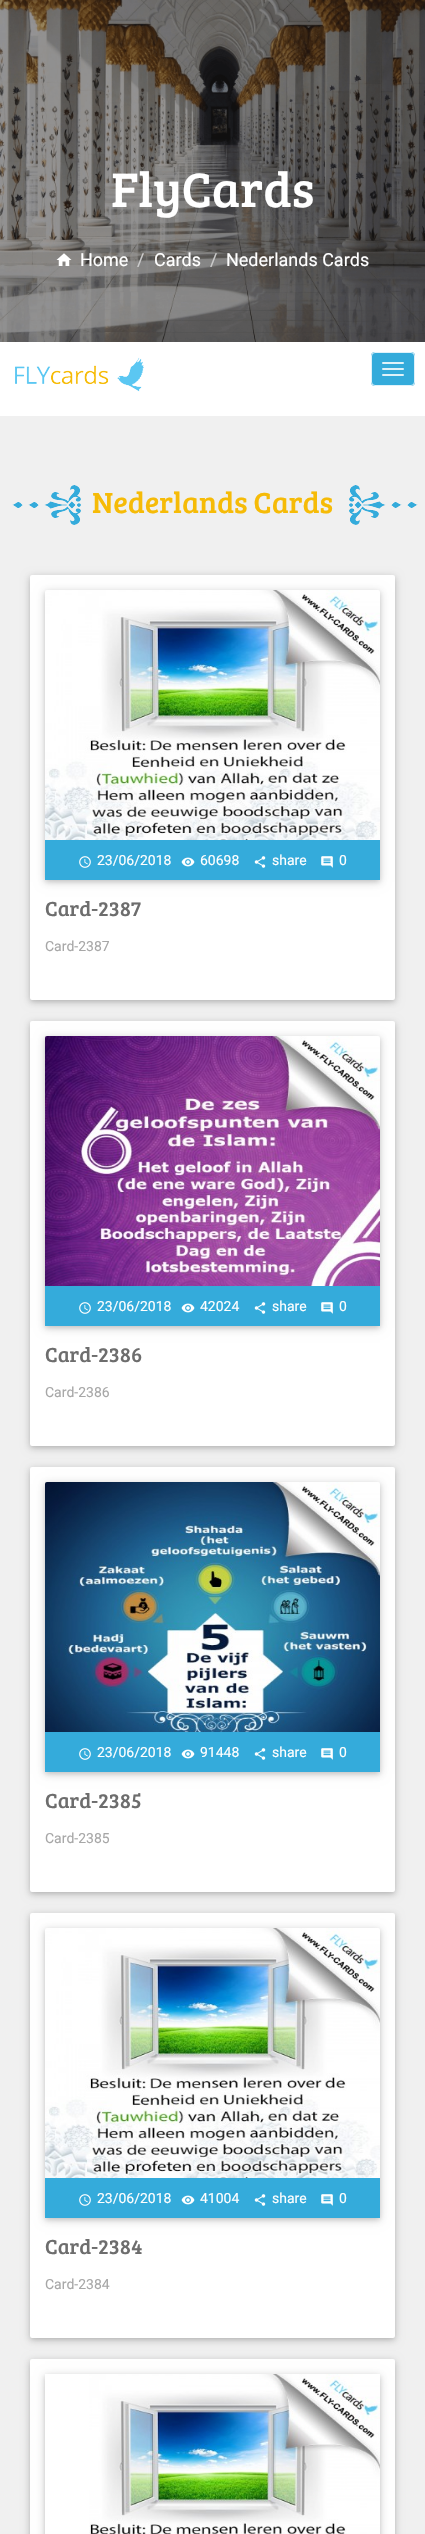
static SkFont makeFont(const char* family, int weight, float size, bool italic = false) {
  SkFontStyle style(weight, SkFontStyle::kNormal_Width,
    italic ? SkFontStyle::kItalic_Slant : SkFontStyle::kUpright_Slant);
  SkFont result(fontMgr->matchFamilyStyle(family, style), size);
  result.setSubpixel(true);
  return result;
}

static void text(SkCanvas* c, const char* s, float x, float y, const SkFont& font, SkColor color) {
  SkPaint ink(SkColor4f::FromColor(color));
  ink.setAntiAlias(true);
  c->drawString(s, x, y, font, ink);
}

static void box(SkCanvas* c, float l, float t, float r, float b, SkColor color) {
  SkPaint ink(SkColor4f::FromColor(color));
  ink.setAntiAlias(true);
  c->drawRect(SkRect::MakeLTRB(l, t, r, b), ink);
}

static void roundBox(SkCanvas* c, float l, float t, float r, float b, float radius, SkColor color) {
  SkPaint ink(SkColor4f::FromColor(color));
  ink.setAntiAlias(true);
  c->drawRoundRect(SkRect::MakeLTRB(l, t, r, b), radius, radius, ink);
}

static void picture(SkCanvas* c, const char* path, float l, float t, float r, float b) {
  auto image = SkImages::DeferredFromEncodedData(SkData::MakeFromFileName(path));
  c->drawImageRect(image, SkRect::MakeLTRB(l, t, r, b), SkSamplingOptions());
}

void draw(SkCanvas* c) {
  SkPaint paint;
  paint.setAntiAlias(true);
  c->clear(0xffffffff);
  picture(c, "img_01.png", 0, 0, 425, 342);
  SkFont face1 = makeFont("Bree Serif", 400, 50);
  text(c, "FlyCards", 111, 207, face1, 0xffffffff);
  picture(c, "img_02.png", 56, 253, 72, 266);
  SkFont face2 = makeFont("Roboto", 400, 18);
  text(c, "Home", 80, 266, face2, 0xffffffff);
  text(c, "/", 137, 266, face2, 0xffcccccc);
  text(c, "Cards", 154, 266, face2, 0xffffffff);
  text(c, "/", 210, 266, face2, 0xffcccccc);
  text(c, "Nederlands Cards", 226, 266, face2, 0xffffffff);
  picture(c, "img_03.png", 15, 357, 144, 392);
  roundBox(c, 371, 352, 415, 386, 4, 0xff34abdb);
  paint.setStyle(SkPaint::kStroke_Style);
  paint.setStrokeWidth(1);
  paint.setColor(0xd6ffffff);
  c->drawRoundRect(SkRect::MakeLTRB(371.5f, 352.5f, 414.5f, 385.5f), 3.5f, 3.5f, paint);
  roundBox(c, 382, 362, 404, 364, 1, 0xffdff2f9);
  roundBox(c, 382, 368, 404, 370, 1, 0xffdff2f9);
  roundBox(c, 382, 374, 404, 376, 1, 0xffdff2f9);
  box(c, 0, 416, 425, 2534, 0xfff0f0f0);
  picture(c, "img_04.png", 12, 485, 81, 525);
  SkFont face3 = makeFont("Bree Serif", 400, 30);
  text(c, "Nederlands Cards", 92, 513, face3, 0xfff6bb07);
  picture(c, "img_05.png", 349, 485, 418, 525);
  paint.setStyle(SkPaint::kFill_Style);
  paint.setColor(0x1f000000);
  paint.setMaskFilter(SkMaskFilter::MakeBlur(kNormal_SkBlurStyle, 5));
  c->drawRoundRect(SkRect::MakeLTRB(30, 577, 395, 1002), 2, 2, paint);
  paint.setMaskFilter(nullptr);
  paint.setColor(0x29000000);
  paint.setMaskFilter(SkMaskFilter::MakeBlur(kNormal_SkBlurStyle, 2.5f));
  c->drawRoundRect(SkRect::MakeLTRB(30, 577, 395, 1002), 2, 2, paint);
  paint.setMaskFilter(nullptr);
  roundBox(c, 30, 575, 395, 1000, 2, 0xffffffff);
  paint.setColor(0x1f000000);
  paint.setMaskFilter(SkMaskFilter::MakeBlur(kNormal_SkBlurStyle, 5));
  c->drawRect(SkRect::MakeLTRB(45, 592, 380, 882), paint);
  paint.setMaskFilter(nullptr);
  paint.setColor(0x29000000);
  paint.setMaskFilter(SkMaskFilter::MakeBlur(kNormal_SkBlurStyle, 2.5f));
  c->drawRect(SkRect::MakeLTRB(45, 592, 380, 882), paint);
  paint.setMaskFilter(nullptr);
  picture(c, "img_06.png", 45, 590, 380, 840);
  box(c, 45, 840, 380, 880, 0xff34abdb);
  picture(c, "img_07.png", 79, 856, 91, 868);
  SkFont face4 = makeFont("Roboto", 400, 14);
  text(c, "23/06/2018", 97, 865, face4, 0xffffffff);
  picture(c, "img_08.png", 181, 857, 195, 867);
  text(c, "60698", 200, 865, face4, 0xffffffff);
  picture(c, "img_09.png", 254, 856, 266, 868);
  text(c, "share", 272, 865, face4, 0xffffffff);
  picture(c, "img_10.png", 321, 856, 333, 868);
  text(c, "0", 339, 865, face4, 0xffffffff);
  SkFont face5 = makeFont("Bree Serif", 400, 21);
  text(c, "Card-2387", 45, 916, face5, 0xff6d6d6d);
  text(c, "Card-2387", 45, 951, face4, 0xffa7a7a7);
  paint.setColor(0x1f000000);
  paint.setMaskFilter(SkMaskFilter::MakeBlur(kNormal_SkBlurStyle, 5));
  c->drawRoundRect(SkRect::MakeLTRB(30, 1023, 395, 1448), 2, 2, paint);
  paint.setMaskFilter(nullptr);
  paint.setColor(0x29000000);
  paint.setMaskFilter(SkMaskFilter::MakeBlur(kNormal_SkBlurStyle, 2.5f));
  c->drawRoundRect(SkRect::MakeLTRB(30, 1023, 395, 1448), 2, 2, paint);
  paint.setMaskFilter(nullptr);
  roundBox(c, 30, 1021, 395, 1446, 2, 0xffffffff);
  paint.setColor(0x1f000000);
  paint.setMaskFilter(SkMaskFilter::MakeBlur(kNormal_SkBlurStyle, 5));
  c->drawRect(SkRect::MakeLTRB(45, 1038, 380, 1328), paint);
  paint.setMaskFilter(nullptr);
  paint.setColor(0x29000000);
  paint.setMaskFilter(SkMaskFilter::MakeBlur(kNormal_SkBlurStyle, 2.5f));
  c->drawRect(SkRect::MakeLTRB(45, 1038, 380, 1328), paint);
  paint.setMaskFilter(nullptr);
  picture(c, "img_11.png", 45, 1036, 380, 1286);
  box(c, 45, 1286, 380, 1326, 0xff34abdb);
  picture(c, "img_07.png", 79, 1302, 91, 1314);
  text(c, "23/06/2018", 97, 1311, face4, 0xffffffff);
  picture(c, "img_08.png", 181, 1303, 195, 1313);
  text(c, "42024", 200, 1311, face4, 0xffffffff);
  picture(c, "img_09.png", 254, 1302, 266, 1314);
  text(c, "share", 272, 1311, face4, 0xffffffff);
  picture(c, "img_10.png", 321, 1302, 333, 1314);
  text(c, "0", 339, 1311, face4, 0xffffffff);
  text(c, "Card-2386", 45, 1362, face5, 0xff6d6d6d);
  text(c, "Card-2386", 45, 1397, face4, 0xffa7a7a7);
  paint.setColor(0x1f000000);
  paint.setMaskFilter(SkMaskFilter::MakeBlur(kNormal_SkBlurStyle, 5));
  c->drawRoundRect(SkRect::MakeLTRB(30, 1469, 395, 1894), 2, 2, paint);
  paint.setMaskFilter(nullptr);
  paint.setColor(0x29000000);
  paint.setMaskFilter(SkMaskFilter::MakeBlur(kNormal_SkBlurStyle, 2.5f));
  c->drawRoundRect(SkRect::MakeLTRB(30, 1469, 395, 1894), 2, 2, paint);
  paint.setMaskFilter(nullptr);
  roundBox(c, 30, 1467, 395, 1892, 2, 0xffffffff);
  paint.setColor(0x1f000000);
  paint.setMaskFilter(SkMaskFilter::MakeBlur(kNormal_SkBlurStyle, 5));
  c->drawRect(SkRect::MakeLTRB(45, 1484, 380, 1774), paint);
  paint.setMaskFilter(nullptr);
  paint.setColor(0x29000000);
  paint.setMaskFilter(SkMaskFilter::MakeBlur(kNormal_SkBlurStyle, 2.5f));
  c->drawRect(SkRect::MakeLTRB(45, 1484, 380, 1774), paint);
  paint.setMaskFilter(nullptr);
  picture(c, "img_12.png", 45, 1482, 380, 1732);
  box(c, 45, 1732, 380, 1772, 0xff34abdb);
  picture(c, "img_07.png", 79, 1748, 91, 1760);
  text(c, "23/06/2018", 97, 1757, face4, 0xffffffff);
  picture(c, "img_08.png", 181, 1749, 195, 1759);
  text(c, "91448", 200, 1757, face4, 0xffffffff);
  picture(c, "img_09.png", 254, 1748, 266, 1760);
  text(c, "share", 272, 1757, face4, 0xffffffff);
  picture(c, "img_10.png", 321, 1748, 333, 1760);
  text(c, "0", 339, 1757, face4, 0xffffffff);
  text(c, "Card-2385", 45, 1808, face5, 0xff6d6d6d);
  text(c, "Card-2385", 45, 1843, face4, 0xffa7a7a7);
  paint.setColor(0x1f000000);
  paint.setMaskFilter(SkMaskFilter::MakeBlur(kNormal_SkBlurStyle, 5));
  c->drawRoundRect(SkRect::MakeLTRB(30, 1915, 395, 2340), 2, 2, paint);
  paint.setMaskFilter(nullptr);
  paint.setColor(0x29000000);
  paint.setMaskFilter(SkMaskFilter::MakeBlur(kNormal_SkBlurStyle, 2.5f));
  c->drawRoundRect(SkRect::MakeLTRB(30, 1915, 395, 2340), 2, 2, paint);
  paint.setMaskFilter(nullptr);
  roundBox(c, 30, 1913, 395, 2338, 2, 0xffffffff);
  paint.setColor(0x1f000000);
  paint.setMaskFilter(SkMaskFilter::MakeBlur(kNormal_SkBlurStyle, 5));
  c->drawRect(SkRect::MakeLTRB(45, 1930, 380, 2220), paint);
  paint.setMaskFilter(nullptr);
  paint.setColor(0x29000000);
  paint.setMaskFilter(SkMaskFilter::MakeBlur(kNormal_SkBlurStyle, 2.5f));
  c->drawRect(SkRect::MakeLTRB(45, 1930, 380, 2220), paint);
  paint.setMaskFilter(nullptr);
  picture(c, "img_13.png", 45, 1928, 380, 2178);
  box(c, 45, 2178, 380, 2218, 0xff34abdb);
  picture(c, "img_07.png", 79, 2194, 91, 2206);
  text(c, "23/06/2018", 97, 2203, face4, 0xffffffff);
  picture(c, "img_08.png", 181, 2195, 195, 2205);
  text(c, "41004", 200, 2203, face4, 0xffffffff);
  picture(c, "img_09.png", 254, 2194, 266, 2206);
  text(c, "share", 272, 2203, face4, 0xffffffff);
  picture(c, "img_10.png", 321, 2194, 333, 2206);
  text(c, "0", 339, 2203, face4, 0xffffffff);
  text(c, "Card-2384", 45, 2254, face5, 0xff6d6d6d);
  text(c, "Card-2384", 45, 2289, face4, 0xffa7a7a7);
  paint.setColor(0x1f000000);
  paint.setMaskFilter(SkMaskFilter::MakeBlur(kNormal_SkBlurStyle, 5));
  c->drawRoundRect(SkRect::MakeLTRB(30, 2361, 395, 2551), 2, 2, paint);
  paint.setMaskFilter(nullptr);
  paint.setColor(0x29000000);
  paint.setMaskFilter(SkMaskFilter::MakeBlur(kNormal_SkBlurStyle, 2.5f));
  c->drawRoundRect(SkRect::MakeLTRB(30, 2361, 395, 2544), 2, 2, paint);
  paint.setMaskFilter(nullptr);
  roundBox(c, 30, 2359, 395, 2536, 2, 0xffffffff);
  c->save();
  c->clipPath(SkPathBuilder(SkPathFillType::kEvenOdd).moveTo(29, 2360).lineTo(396, 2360).lineTo(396, 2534).lineTo(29, 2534).close().moveTo(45, 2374).lineTo(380, 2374).lineTo(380, 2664).lineTo(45, 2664).close().detach(), true);
  paint.setColor(0x1f000000);
  paint.setMaskFilter(SkMaskFilter::MakeBlur(kNormal_SkBlurStyle, 5));
  c->drawRect(SkRect::MakeLTRB(45, 2376, 380, 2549), paint);
  paint.setMaskFilter(nullptr);
  c->restore();
  c->save();
  c->clipPath(SkPathBuilder(SkPathFillType::kEvenOdd).moveTo(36, 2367).lineTo(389, 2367).lineTo(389, 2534).lineTo(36, 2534).close().moveTo(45, 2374).lineTo(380, 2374).lineTo(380, 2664).lineTo(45, 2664).close().detach(), true);
  paint.setColor(0x29000000);
  paint.setMaskFilter(SkMaskFilter::MakeBlur(kNormal_SkBlurStyle, 2.5f));
  c->drawRect(SkRect::MakeLTRB(45, 2376, 380, 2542), paint);
  paint.setMaskFilter(nullptr);
  c->restore();
  picture(c, "img_14.png", 89, 2374, 380, 2534);
}
